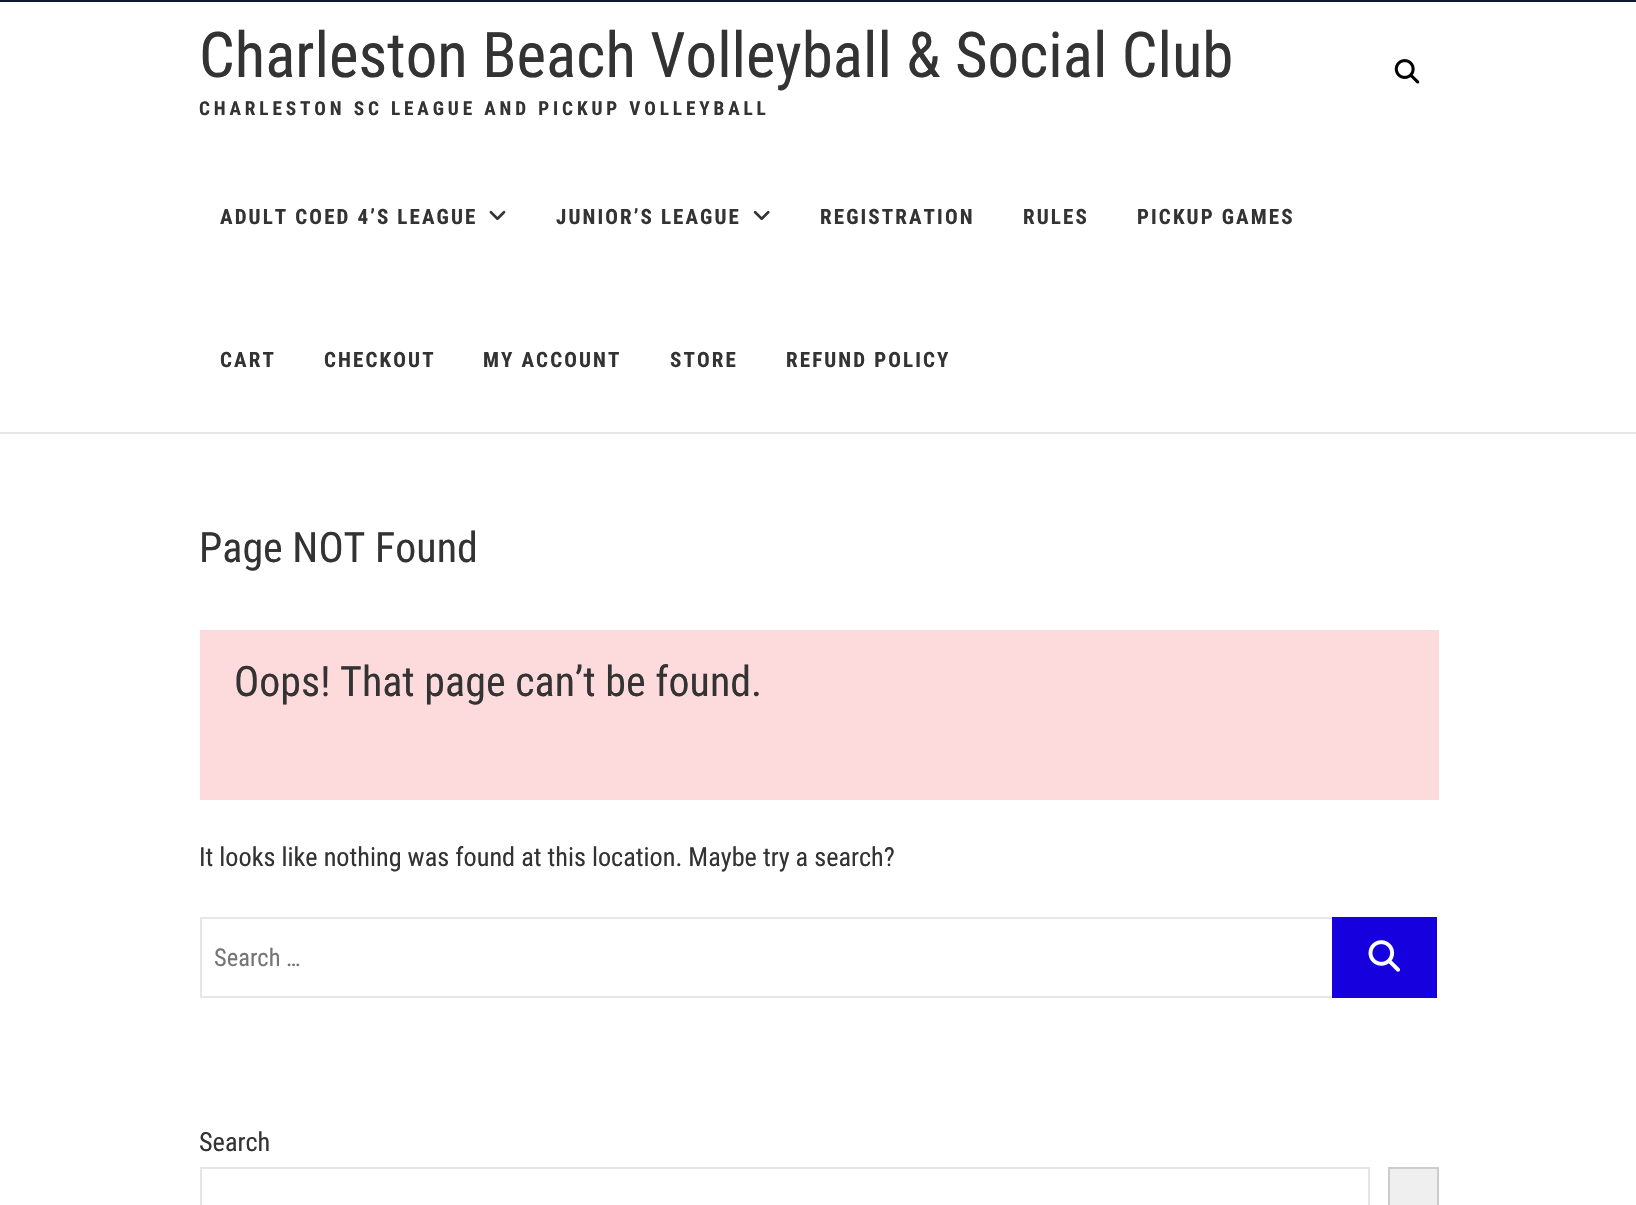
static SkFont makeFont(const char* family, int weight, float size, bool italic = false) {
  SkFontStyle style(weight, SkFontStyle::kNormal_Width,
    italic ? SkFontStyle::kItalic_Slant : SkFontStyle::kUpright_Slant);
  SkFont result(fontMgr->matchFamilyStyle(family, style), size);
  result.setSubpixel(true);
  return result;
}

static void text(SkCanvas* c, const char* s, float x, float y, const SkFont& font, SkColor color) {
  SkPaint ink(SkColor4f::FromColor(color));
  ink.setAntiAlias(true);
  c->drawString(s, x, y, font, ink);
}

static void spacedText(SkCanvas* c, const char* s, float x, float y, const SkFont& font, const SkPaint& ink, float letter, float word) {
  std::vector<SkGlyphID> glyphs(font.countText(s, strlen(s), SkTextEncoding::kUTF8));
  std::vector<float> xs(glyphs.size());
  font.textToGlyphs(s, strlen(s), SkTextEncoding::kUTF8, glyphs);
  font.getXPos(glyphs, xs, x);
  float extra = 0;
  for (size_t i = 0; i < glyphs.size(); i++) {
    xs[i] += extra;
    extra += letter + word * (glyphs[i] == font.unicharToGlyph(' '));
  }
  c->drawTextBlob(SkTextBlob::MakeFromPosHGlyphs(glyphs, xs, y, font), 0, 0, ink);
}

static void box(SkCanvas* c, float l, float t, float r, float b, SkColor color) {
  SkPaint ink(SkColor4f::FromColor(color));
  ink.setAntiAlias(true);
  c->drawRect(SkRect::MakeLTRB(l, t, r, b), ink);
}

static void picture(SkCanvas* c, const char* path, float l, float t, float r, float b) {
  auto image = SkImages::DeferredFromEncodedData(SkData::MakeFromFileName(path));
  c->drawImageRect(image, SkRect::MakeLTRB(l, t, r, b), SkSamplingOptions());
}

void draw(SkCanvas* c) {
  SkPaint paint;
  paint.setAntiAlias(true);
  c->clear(0xffffffff);
  box(c, 0, 0, 1636, 2, 0xff0c1a2c);
  box(c, 0, 432, 1636, 434, 0xffe6e6e6);
  SkFont face1 = makeFont("Roboto Condensed", 400, 63);
  text(c, "Charleston Beach Volleyball & Social Club", 199, 77, face1, 0xff333333);
  SkFont face2 = makeFont("Roboto Condensed", 700, 19.25f);
  paint.setColor(0xff333333);
  spacedText(c, "CHARLESTON SC LEAGUE AND PICKUP VOLLEYBALL", 199, 115, face2, paint, 3.85f, 0);
  picture(c, "img_01.png", 1394, 59, 1420, 84);
  SkFont face3 = makeFont("Roboto Condensed", 700, 21);
  spacedText(c, "ADULT COED 4’S LEAGUE", 220, 224, face3, paint, 2.1f, 0);
  picture(c, "img_02.png", 489, 210, 506, 220);
  spacedText(c, "JUNIOR’S LEAGUE", 556, 224, face3, paint, 2.1f, 0);
  picture(c, "img_03.png", 753, 210, 770, 220);
  spacedText(c, "REGISTRATION", 820, 224, face3, paint, 2.1f, 0);
  spacedText(c, "RULES", 1023, 224, face3, paint, 2.1f, 0);
  spacedText(c, "PICKUP GAMES", 1137, 224, face3, paint, 2.1f, 0);
  spacedText(c, "CART", 220, 367, face3, paint, 2.1f, 0);
  spacedText(c, "CHECKOUT", 324, 367, face3, paint, 2.1f, 0);
  spacedText(c, "MY ACCOUNT", 483, 367, face3, paint, 2.1f, 0);
  spacedText(c, "STORE", 670, 367, face3, paint, 2.1f, 0);
  spacedText(c, "REFUND POLICY", 786, 367, face3, paint, 2.1f, 0);
  SkFont face4 = makeFont("Roboto Condensed", 400, 42);
  text(c, "Page NOT Found", 199, 562, face4, 0xff333333);
  box(c, 200, 630, 1439, 800, 0xfffddbdd);
  text(c, "Oops! That page can’t be found.", 234, 696, face4, 0xff333333);
  SkFont face5 = makeFont("Roboto Condensed", 400, 26.25f);
  text(c, "It looks like nothing was found at this location. Maybe try a search?", 199, 866, face5, 0xff333333);
  paint.setStyle(SkPaint::kStroke_Style);
  paint.setStrokeWidth(2);
  paint.setColor(0xffe6e6e6);
  c->drawRect(SkRect::MakeLTRB(201, 918, 1333, 997), paint);
  SkFont face6 = makeFont("Roboto Condensed", 400, 24.5f);
  text(c, "Search …", 214, 966, face6, 0xff757575);
  box(c, 1332, 917, 1437, 998, 0xff1600dd);
  picture(c, "img_04.png", 1368, 940, 1400, 972);
  text(c, "Search", 199, 1151, face5, 0xff333333);
  c->drawRect(SkRect::MakeLTRB(201, 1168, 1369, 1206), paint);
  paint.setStyle(SkPaint::kFill_Style);
  paint.setColor(0xffefefef);
  c->drawRect(SkRect::MakeLTRB(1389, 1168, 1438, 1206), paint);
  paint.setStyle(SkPaint::kStroke_Style);
  paint.setColor(0xffcccccc);
  c->drawRect(SkRect::MakeLTRB(1389, 1168, 1438, 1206), paint);
}
